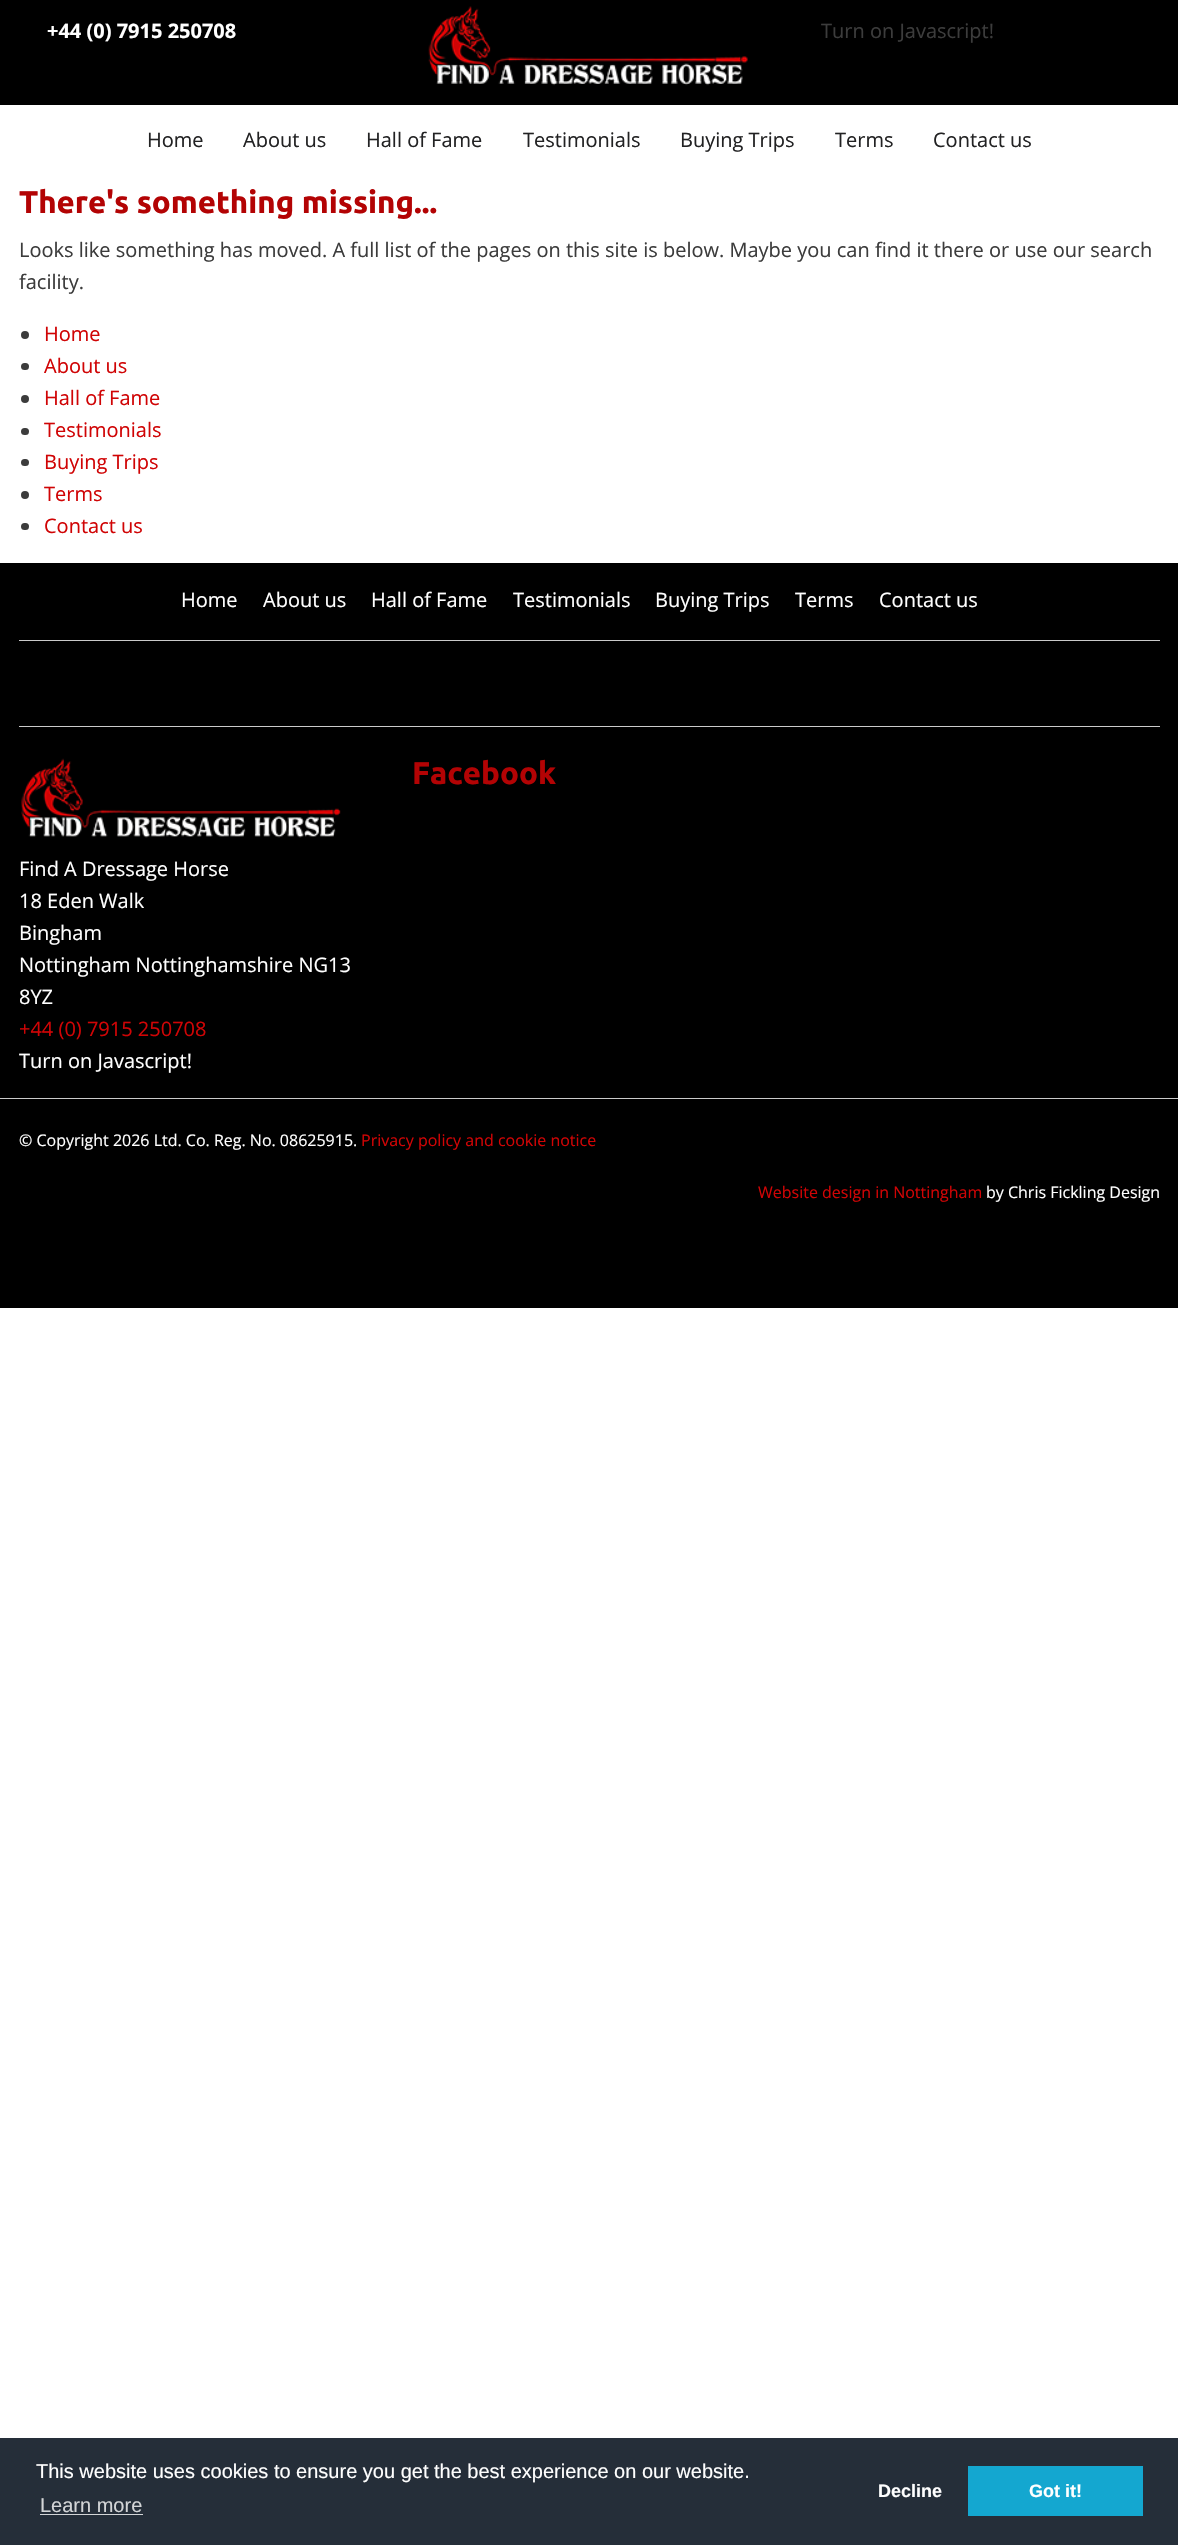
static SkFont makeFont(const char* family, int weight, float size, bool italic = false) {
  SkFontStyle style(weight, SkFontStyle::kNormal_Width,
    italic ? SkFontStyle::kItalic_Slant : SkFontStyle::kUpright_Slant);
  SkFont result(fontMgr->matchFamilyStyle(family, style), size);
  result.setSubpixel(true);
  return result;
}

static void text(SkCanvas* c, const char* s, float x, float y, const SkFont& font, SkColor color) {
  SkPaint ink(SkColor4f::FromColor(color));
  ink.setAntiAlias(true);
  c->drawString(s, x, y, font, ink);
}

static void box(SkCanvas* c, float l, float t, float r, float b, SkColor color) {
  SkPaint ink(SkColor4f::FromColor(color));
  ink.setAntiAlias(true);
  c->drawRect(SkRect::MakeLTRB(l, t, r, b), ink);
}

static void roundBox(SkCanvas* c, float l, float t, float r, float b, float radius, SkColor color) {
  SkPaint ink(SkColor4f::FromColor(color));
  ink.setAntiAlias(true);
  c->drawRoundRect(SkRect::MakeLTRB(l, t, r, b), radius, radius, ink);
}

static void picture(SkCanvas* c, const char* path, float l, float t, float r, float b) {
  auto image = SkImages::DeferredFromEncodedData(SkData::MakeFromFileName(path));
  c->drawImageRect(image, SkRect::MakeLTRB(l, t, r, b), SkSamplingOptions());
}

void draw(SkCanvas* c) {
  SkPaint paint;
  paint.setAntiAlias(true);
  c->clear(0xffffffff);
  box(c, 0, 0, 1178, 105, 0xff000000);
  SkFont face1 = makeFont("Open Sans", 700, 20);
  text(c, "+44 (0) 7915 250708", 47, 38, face1, 0xffffffff);
  picture(c, "img_01.png", 428, 6, 748, 86);
  SkFont face2 = makeFont("Open Sans", 400, 20);
  text(c, "Turn on Javascript!", 821, 38, face2, 0xff3c3c3c);
  text(c, "Home", 147, 147, face2, 0xff222223);
  text(c, "About us", 243, 147, face2, 0xff222223);
  text(c, "Hall of Fame", 366, 147, face2, 0xff222223);
  text(c, "Testimonials", 523, 147, face2, 0xff222223);
  text(c, "Buying Trips", 680, 147, face2, 0xff222223);
  text(c, "Terms", 835, 147, face2, 0xff222223);
  text(c, "Contact us", 933, 147, face2, 0xff222223);
  SkFont face3 = makeFont("Ubuntu", 700, 31.25f);
  text(c, "There's something missing...", 19, 213, face3, 0xffb30304);
  text(c, "Looks like something has moved. A full list of the pages on this site is below. Maybe you can find it there or use our search", 19, 257, face2, 0xff3c3c3c);
  text(c, "facility.", 19, 289, face2, 0xff3c3c3c);
  paint.setColor(0xff3c3c3c);
  c->drawCircle(25, 335, 4, paint);
  text(c, "Home", 44, 341, face2, 0xffd00405);
  roundBox(c, 21, 363, 29, 370, 3.5f, 0xff3c3c3c);
  text(c, "About us", 44, 373, face2, 0xffd00405);
  c->drawCircle(25, 399, 4, paint);
  text(c, "Hall of Fame", 44, 405, face2, 0xffd00405);
  roundBox(c, 21, 428, 29, 435, 3.5f, 0xff3c3c3c);
  text(c, "Testimonials", 44, 437, face2, 0xffd00405);
  roundBox(c, 21, 459, 29, 466, 3.5f, 0xff3c3c3c);
  text(c, "Buying Trips", 44, 469, face2, 0xffd00405);
  c->drawCircle(25, 495, 4, paint);
  text(c, "Terms", 44, 501, face2, 0xffd00405);
  roundBox(c, 21, 523, 29, 530, 3.5f, 0xff3c3c3c);
  text(c, "Contact us", 44, 533, face2, 0xffd00405);
  box(c, 0, 563, 1178, 1308, 0xff000000);
  text(c, "Home", 181, 607, face2, 0xffffffff);
  text(c, "About us", 263, 607, face2, 0xffffffff);
  text(c, "Hall of Fame", 371, 607, face2, 0xffffffff);
  text(c, "Testimonials", 513, 607, face2, 0xffffffff);
  text(c, "Buying Trips", 655, 607, face2, 0xffffffff);
  text(c, "Terms", 795, 607, face2, 0xffffffff);
  text(c, "Contact us", 879, 607, face2, 0xffffffff);
  box(c, 19, 640, 1160, 641, 0xffcacaca);
  box(c, 19, 726, 1160, 727, 0xffcacaca);
  text(c, "Facebook", 412, 784, face3, 0xffb30304);
  picture(c, "img_02.png", 21, 758, 341, 838);
  text(c, "Find A Dressage Horse", 19, 876, face2, 0xffffffff);
  text(c, "18 Eden Walk", 19, 908, face2, 0xffffffff);
  text(c, "Bingham", 19, 940, face2, 0xffffffff);
  text(c, "Nottingham Nottinghamshire NG13", 19, 972, face2, 0xffffffff);
  text(c, "8YZ", 19, 1004, face2, 0xffffffff);
  text(c, "+44 (0) 7915 250708", 19, 1036, face2, 0xffd00405);
  text(c, "Turn on Javascript!", 19, 1068, face2, 0xffffffff);
  box(c, 0, 1098, 1178, 1099, 0xffcacaca);
  SkFont face4 = makeFont("Open Sans", 400, 16);
  text(c, "© Copyright 2026 Ltd. Co. Reg. No. 08625915.", 19, 1146, face4, 0xffffffff);
  text(c, "Privacy policy and cookie notice", 361, 1146, face4, 0xffd00405);
  text(c, "Website design in Nottingham", 758, 1198, face4, 0xffd00405);
  text(c, "by Chris Fickling Design", 986, 1198, face4, 0xffffffff);
  box(c, 0, 2438, 1178, 2545, 0xff252e39);
  SkFont face5 = makeFont("Liberation Sans", 400, 20);
  text(c, "This website uses cookies to ensure you get the best experience on our website.", 36, 2478, face5, 0xffffffff);
  text(c, "Learn more", 40, 2512, face5, 0xffd3d5d7);
  box(c, 40, 2514, 143, 2515, 0xffd3d5d7);
  SkFont face6 = makeFont("Liberation Sans", 700, 18);
  text(c, "Decline", 878, 2497, face6, 0xffffffff);
  box(c, 968, 2466, 1143, 2516, 0xff14a7d0);
  text(c, "Got it!", 1029, 2497, face6, 0xffffffff);
}
